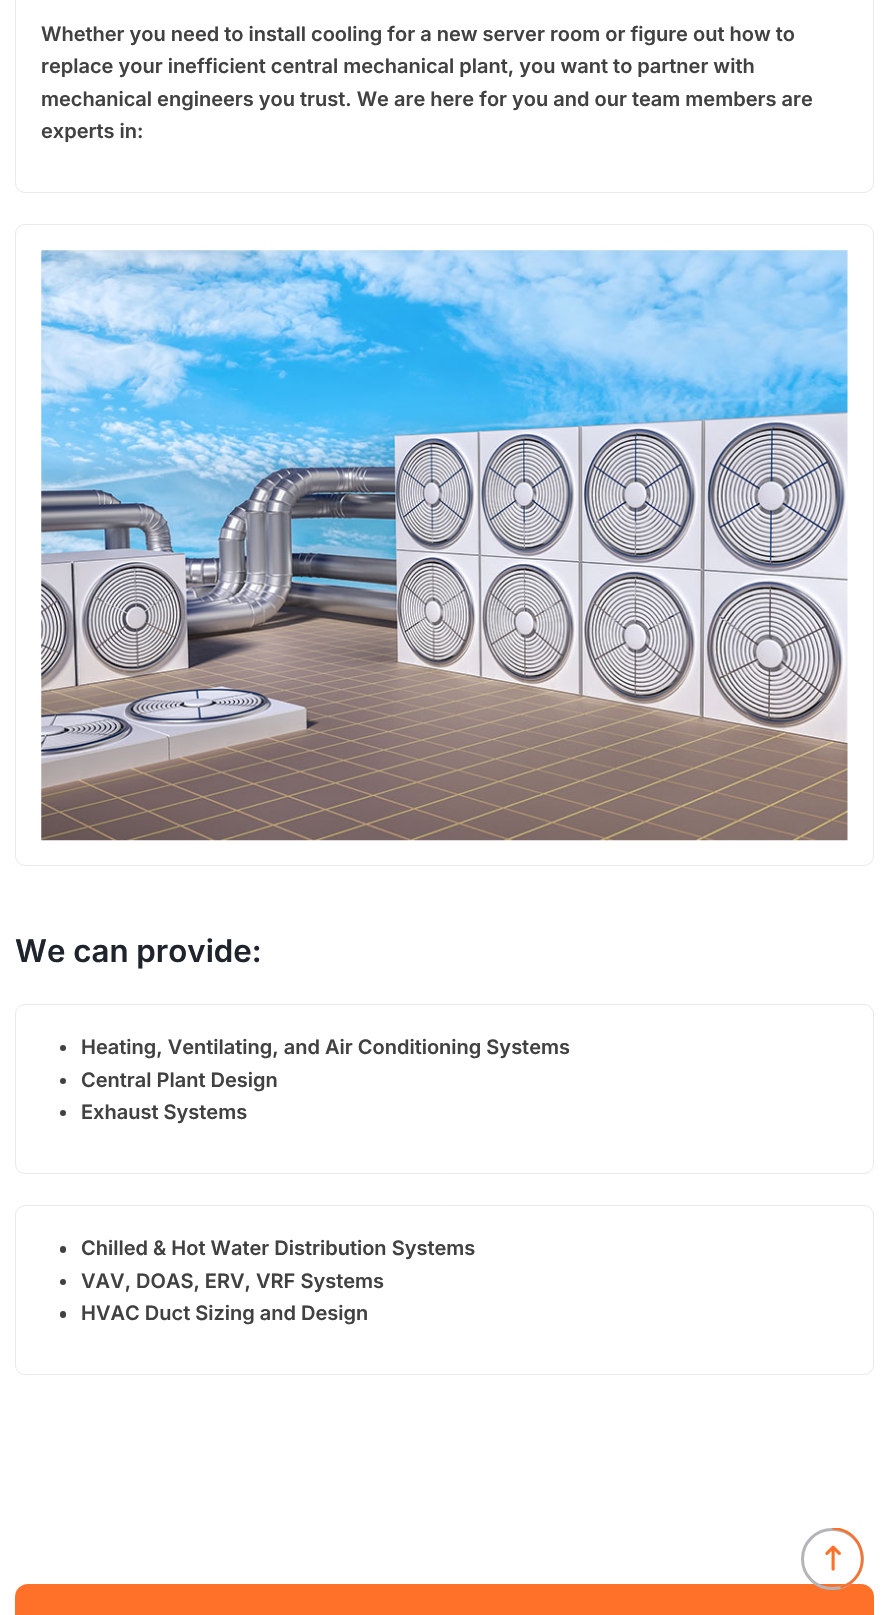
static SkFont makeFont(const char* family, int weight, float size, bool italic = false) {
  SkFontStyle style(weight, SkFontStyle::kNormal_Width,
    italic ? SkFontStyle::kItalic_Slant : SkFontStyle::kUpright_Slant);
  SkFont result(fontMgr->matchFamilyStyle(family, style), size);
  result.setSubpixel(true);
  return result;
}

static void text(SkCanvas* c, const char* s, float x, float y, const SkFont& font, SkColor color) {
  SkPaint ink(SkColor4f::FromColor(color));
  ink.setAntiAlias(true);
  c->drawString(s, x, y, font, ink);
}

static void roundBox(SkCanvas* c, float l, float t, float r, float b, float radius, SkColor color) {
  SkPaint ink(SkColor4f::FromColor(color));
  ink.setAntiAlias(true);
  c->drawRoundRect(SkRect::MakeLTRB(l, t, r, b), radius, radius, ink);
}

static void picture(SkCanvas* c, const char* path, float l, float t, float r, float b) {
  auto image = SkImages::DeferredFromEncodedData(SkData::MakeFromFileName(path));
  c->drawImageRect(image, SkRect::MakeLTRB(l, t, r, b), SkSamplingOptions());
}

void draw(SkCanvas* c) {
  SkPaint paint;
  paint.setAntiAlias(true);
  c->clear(0xffffffff);
  paint.setStyle(SkPaint::kStroke_Style);
  paint.setStrokeWidth(1);
  paint.setColor(0xffe9e9ea);
  c->drawRoundRect(SkRect::MakeLTRB(15.5f, -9.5f, 873.5f, 192.5f), 9.5f, 9.5f, paint);
  SkFont face1 = makeFont("Inter", 600, 20);
  text(c, "Whether you need to install cooling for a new server room or figure out how to", 41, 41, face1, 0xff414141);
  text(c, "replace your inefficient central mechanical plant, you want to partner with", 41, 73, face1, 0xff414141);
  text(c, "mechanical engineers you trust. We are here for you and our team members are", 41, 106, face1, 0xff414141);
  text(c, "experts in:", 41, 138, face1, 0xff414141);
  c->drawRoundRect(SkRect::MakeLTRB(15.5f, 224.5f, 873.5f, 865.5f), 9.5f, 9.5f, paint);
  picture(c, "img_01.png", 41, 250, 848, 841);
  SkFont face2 = makeFont("Inter", 600, 31.25f);
  text(c, "We can provide:", 15, 962, face2, 0xff1f242c);
  c->drawRoundRect(SkRect::MakeLTRB(15.5f, 1004.5f, 873.5f, 1173.5f), 9.5f, 9.5f, paint);
  paint.setStyle(SkPaint::kFill_Style);
  paint.setColor(0xff414141);
  c->drawCircle(63, 1048, 3, paint);
  text(c, "Heating, Ventilating, and Air Conditioning Systems", 81, 1054, face1, 0xff414141);
  c->drawCircle(63, 1081, 3, paint);
  text(c, "Central Plant Design", 81, 1087, face1, 0xff414141);
  c->drawCircle(63, 1113, 3, paint);
  text(c, "Exhaust Systems", 81, 1119, face1, 0xff414141);
  paint.setStyle(SkPaint::kStroke_Style);
  paint.setColor(0xffe9e9ea);
  c->drawRoundRect(SkRect::MakeLTRB(15.5f, 1205.5f, 873.5f, 1374.5f), 9.5f, 9.5f, paint);
  roundBox(c, 60, 1246, 66, 1253, 3, 0xff414141);
  text(c, "Chilled & Hot Water Distribution Systems", 81, 1255, face1, 0xff414141);
  paint.setStyle(SkPaint::kFill_Style);
  paint.setColor(0xff414141);
  c->drawCircle(63, 1282, 3, paint);
  text(c, "VAV, DOAS, ERV, VRF Systems", 81, 1288, face1, 0xff414141);
  roundBox(c, 60, 1311, 66, 1318, 3, 0xff414141);
  text(c, "HVAC Duct Sizing and Design", 81, 1320, face1, 0xff414141);
  roundBox(c, 15, 1584, 874, 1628, 13, 0xffff7029);
  paint.setStyle(SkPaint::kStroke_Style);
  paint.setStrokeWidth(3);
  paint.setColor(0xffb4b4b9);
  c->drawRoundRect(SkRect::MakeLTRB(802.5f, 1529.5f, 862.5f, 1588.5f), 29.5f, 29.5f, paint);
  c->save();
  c->clipRect(SkRect::MakeLTRB(801, 1528, 864, 1590));
  paint.setStrokeWidth(2.5f);
  paint.setColor(0xffff7029);
  c->drawPath(SkPathBuilder().moveTo(832.5f, 1528.5f).cubicTo(867, 1528.5f, 873.5f, 1578.5f, 840.5f, 1587.5f).detach(), paint);
  c->restore();
  picture(c, "img_02.png", 825, 1545, 841, 1571);
}
